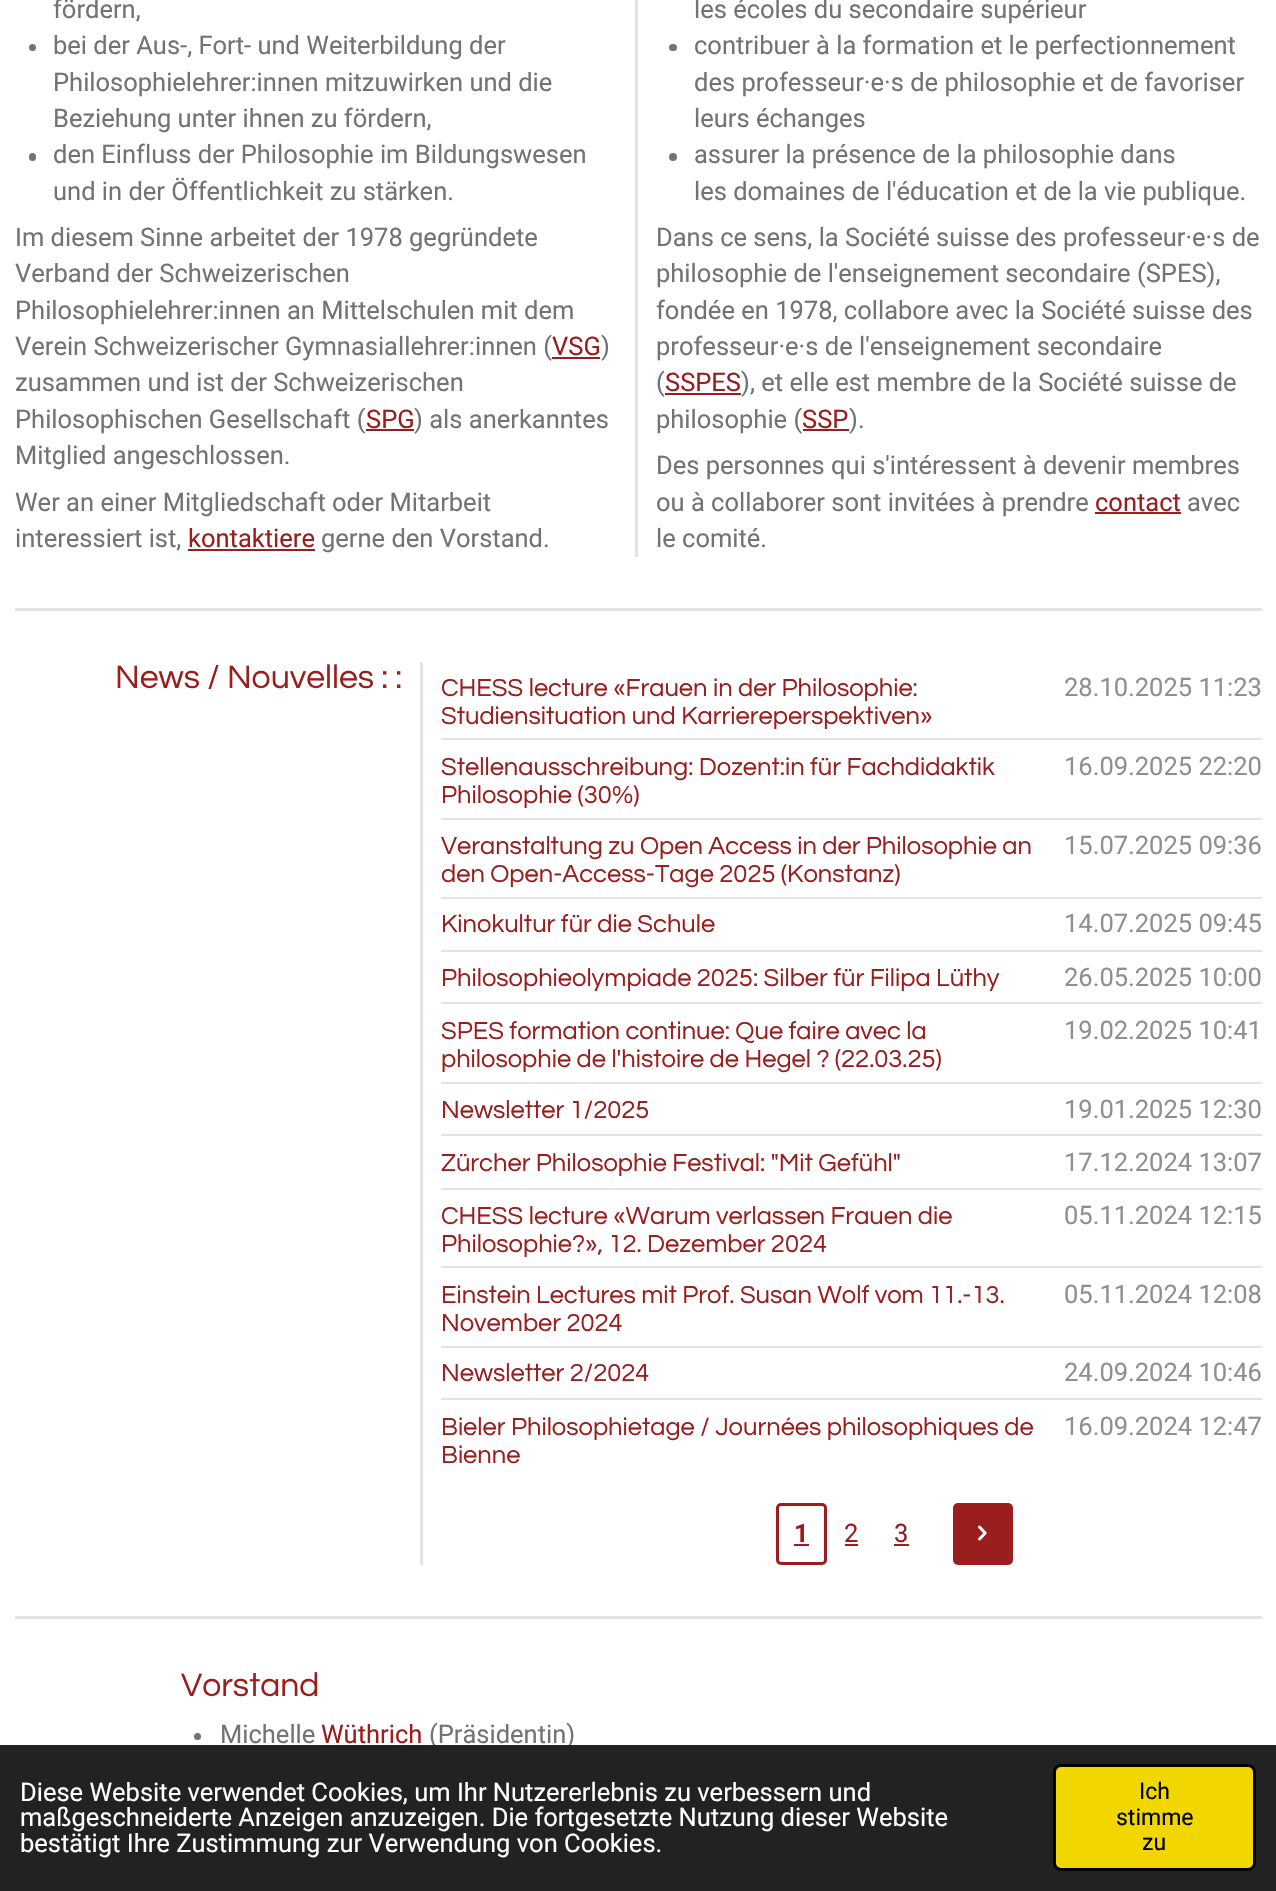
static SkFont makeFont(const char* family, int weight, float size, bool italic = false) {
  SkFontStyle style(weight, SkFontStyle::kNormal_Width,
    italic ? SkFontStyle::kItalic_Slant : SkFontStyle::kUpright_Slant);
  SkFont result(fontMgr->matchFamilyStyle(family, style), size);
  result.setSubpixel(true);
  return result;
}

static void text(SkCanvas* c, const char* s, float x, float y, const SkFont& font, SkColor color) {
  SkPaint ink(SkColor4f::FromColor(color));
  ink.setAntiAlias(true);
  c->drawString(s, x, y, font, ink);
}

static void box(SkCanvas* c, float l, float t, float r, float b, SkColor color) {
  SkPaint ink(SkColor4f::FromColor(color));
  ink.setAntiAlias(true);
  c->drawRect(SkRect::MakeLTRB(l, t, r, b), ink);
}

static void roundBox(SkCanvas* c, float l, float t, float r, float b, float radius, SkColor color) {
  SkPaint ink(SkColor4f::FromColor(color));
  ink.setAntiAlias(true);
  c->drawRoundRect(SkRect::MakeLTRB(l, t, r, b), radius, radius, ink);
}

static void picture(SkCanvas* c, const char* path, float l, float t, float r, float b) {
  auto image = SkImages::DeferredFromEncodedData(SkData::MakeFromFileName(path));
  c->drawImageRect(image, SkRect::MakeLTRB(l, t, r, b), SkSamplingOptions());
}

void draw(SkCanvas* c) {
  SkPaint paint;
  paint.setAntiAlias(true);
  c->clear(0xffffffff);
  box(c, 635, 0, 638, 557, 0xffe3e3e3);
  SkFont face1 = makeFont("Roboto", 400, 25.5f);
  text(c, "fördern,", 53, 18, face1, 0xff737373);
  paint.setColor(0xff737373);
  c->drawCircle(32.5f, 47.5f, 3.5f, paint);
  text(c, "bei der Aus-, Fort- und Weiterbildung der", 53, 54, face1, 0xff737373);
  text(c, "Philosophielehrer:innen mitzuwirken und die", 53, 91, face1, 0xff737373);
  text(c, "Beziehung unter ihnen zu fördern,", 53, 127, face1, 0xff737373);
  roundBox(c, 29, 153, 36, 161, 3.5f, 0xff737373);
  text(c, "den Einfluss der Philosophie im Bildungswesen", 53, 163, face1, 0xff737373);
  text(c, "und in der Öffentlichkeit zu stärken.", 53, 200, face1, 0xff737373);
  text(c, "Im diesem Sinne arbeitet der 1978 gegründete", 15, 246, face1, 0xff737373);
  text(c, "Verband der Schweizerischen", 15, 282, face1, 0xff737373);
  text(c, "Philosophielehrer:innen an Mittelschulen mit dem", 15, 319, face1, 0xff737373);
  text(c, "Verein Schweizerischer Gymnasiallehrer:innen (", 15, 355, face1, 0xff737373);
  text(c, "VSG", 552, 355, face1, 0xff9a1e1e);
  box(c, 552, 357, 600, 359, 0xff9a1e1e);
  text(c, ")", 601, 355, face1, 0xff737373);
  text(c, "zusammen und ist der Schweizerischen", 15, 391, face1, 0xff737373);
  text(c, "Philosophischen Gesellschaft (", 15, 428, face1, 0xff737373);
  text(c, "SPG", 366, 428, face1, 0xff9a1e1e);
  box(c, 366, 429, 414, 431, 0xff9a1e1e);
  text(c, ") als anerkanntes", 414, 428, face1, 0xff737373);
  text(c, "Mitglied angeschlossen.", 15, 464, face1, 0xff737373);
  text(c, "Wer an einer Mitgliedschaft oder Mitarbeit", 15, 511, face1, 0xff737373);
  text(c, "interessiert ist,", 15, 547, face1, 0xff737373);
  text(c, "kontaktiere", 188, 547, face1, 0xff9a1e1e);
  box(c, 188, 549, 315, 551, 0xff9a1e1e);
  text(c, "gerne den Vorstand.", 321, 547, face1, 0xff737373);
  text(c, "les écoles du secondaire supérieur", 694, 18, face1, 0xff737373);
  roundBox(c, 669, 44, 677, 51, 3.5f, 0xff737373);
  text(c, "contribuer à la formation et le perfectionnement", 694, 54, face1, 0xff737373);
  text(c, "des professeur·e·s de philosophie et de favoriser", 694, 91, face1, 0xff737373);
  text(c, "leurs échanges", 694, 127, face1, 0xff737373);
  c->drawCircle(673, 157, 4, paint);
  text(c, "assurer la présence de la philosophie dans", 694, 163, face1, 0xff737373);
  text(c, "les domaines de l'éducation et de la vie publique.", 694, 200, face1, 0xff737373);
  text(c, "Dans ce sens, la Société suisse des professeur·e·s de", 656, 246, face1, 0xff737373);
  text(c, "philosophie de l'enseignement secondaire (SPES),", 656, 282, face1, 0xff737373);
  text(c, "fondée en 1978, collabore avec la Société suisse des", 656, 319, face1, 0xff737373);
  text(c, "professeur·e·s de l'enseignement secondaire", 656, 355, face1, 0xff737373);
  text(c, "(", 656, 391, face1, 0xff737373);
  text(c, "SSPES", 665, 391, face1, 0xff9a1e1e);
  box(c, 665, 393, 741, 395, 0xff9a1e1e);
  text(c, "), et elle est membre de la Société suisse de", 741, 391, face1, 0xff737373);
  text(c, "philosophie (", 656, 428, face1, 0xff737373);
  text(c, "SSP", 802, 428, face1, 0xff9a1e1e);
  box(c, 803, 429, 849, 431, 0xff9a1e1e);
  text(c, ").", 849, 428, face1, 0xff737373);
  text(c, "Des personnes qui s'intéressent à devenir membres", 656, 474, face1, 0xff737373);
  text(c, "ou à collaborer sont invitées à prendre", 656, 511, face1, 0xff737373);
  text(c, "contact", 1095, 511, face1, 0xff9a1e1e);
  box(c, 1095, 512, 1181, 514, 0xff9a1e1e);
  text(c, "avec", 1187, 511, face1, 0xff737373);
  text(c, "le comité.", 656, 547, face1, 0xff737373);
  box(c, 15, 608, 1262, 611, 0xffe3e3e3);
  box(c, 420, 662, 423, 1565, 0xffe3e3e3);
  SkFont face2 = makeFont("Questrial", 400, 33.75f);
  text(c, "News / Nouvelles : :", 115, 688, face2, 0xff9a1e1e);
  SkFont face3 = makeFont("Questrial", 400, 25.5f);
  text(c, "CHESS lecture «Frauen in der Philosophie:", 441, 696, face3, 0xff9a1e1e);
  text(c, "Studiensituation und Karriereperspektiven»", 441, 724, face3, 0xff9a1e1e);
  text(c, "28.10.2025 11:23", 1064, 696, face1, 0xff8f8f8f);
  box(c, 441, 738, 1262, 740, 0xffe3e3e3);
  text(c, "Stellenausschreibung: Dozent:in für Fachdidaktik", 441, 775, face3, 0xff9a1e1e);
  text(c, "Philosophie (30%)", 441, 803, face3, 0xff9a1e1e);
  text(c, "16.09.2025 22:20", 1064, 775, face1, 0xff8f8f8f);
  box(c, 441, 818, 1262, 820, 0xffe3e3e3);
  text(c, "Veranstaltung zu Open Access in der Philosophie an", 441, 854, face3, 0xff9a1e1e);
  text(c, "den Open-Access-Tage 2025 (Konstanz)", 441, 882, face3, 0xff9a1e1e);
  text(c, "15.07.2025 09:36", 1064, 854, face1, 0xff8f8f8f);
  box(c, 441, 897, 1262, 899, 0xffe3e3e3);
  text(c, "Kinokultur für die Schule", 441, 932, face3, 0xff9a1e1e);
  text(c, "14.07.2025 09:45", 1064, 932, face1, 0xff8f8f8f);
  box(c, 441, 950, 1262, 952, 0xffe3e3e3);
  text(c, "Philosophieolympiade 2025: Silber für Filipa Lüthy", 441, 986, face3, 0xff9a1e1e);
  text(c, "26.05.2025 10:00", 1064, 986, face1, 0xff8f8f8f);
  box(c, 441, 1002, 1262, 1004, 0xffe3e3e3);
  text(c, "SPES formation continue: Que faire avec la", 441, 1039, face3, 0xff9a1e1e);
  text(c, "philosophie de l'histoire de Hegel ? (22.03.25)", 441, 1067, face3, 0xff9a1e1e);
  text(c, "19.02.2025 10:41", 1064, 1039, face1, 0xff8f8f8f);
  box(c, 441, 1082, 1262, 1084, 0xffe3e3e3);
  text(c, "Newsletter 1/2025", 441, 1118, face3, 0xff9a1e1e);
  text(c, "19.01.2025 12:30", 1064, 1118, face1, 0xff8f8f8f);
  box(c, 441, 1134, 1262, 1136, 0xffe3e3e3);
  text(c, "Zürcher Philosophie Festival: \"Mit Gefühl\"", 441, 1171, face3, 0xff9a1e1e);
  text(c, "17.12.2024 13:07", 1064, 1171, face1, 0xff8f8f8f);
  box(c, 441, 1188, 1262, 1190, 0xffe3e3e3);
  text(c, "CHESS lecture «Warum verlassen Frauen die", 441, 1224, face3, 0xff9a1e1e);
  text(c, "Philosophie?», 12. Dezember 2024", 441, 1252, face3, 0xff9a1e1e);
  text(c, "05.11.2024 12:15", 1064, 1224, face1, 0xff8f8f8f);
  box(c, 441, 1266, 1262, 1268, 0xffe3e3e3);
  text(c, "Einstein Lectures mit Prof. Susan Wolf vom 11.-13.", 441, 1303, face3, 0xff9a1e1e);
  text(c, "November 2024", 441, 1331, face3, 0xff9a1e1e);
  text(c, "05.11.2024 12:08", 1064, 1303, face1, 0xff8f8f8f);
  box(c, 441, 1346, 1262, 1348, 0xffe3e3e3);
  text(c, "Newsletter 2/2024", 441, 1381, face3, 0xff9a1e1e);
  text(c, "24.09.2024 10:46", 1064, 1381, face1, 0xff8f8f8f);
  box(c, 441, 1398, 1262, 1400, 0xffe3e3e3);
  text(c, "Bieler Philosophietage / Journées philosophiques de", 441, 1435, face3, 0xff9a1e1e);
  text(c, "Bienne", 441, 1463, face3, 0xff9a1e1e);
  text(c, "16.09.2024 12:47", 1064, 1435, face1, 0xff8f8f8f);
  paint.setStyle(SkPaint::kStroke_Style);
  paint.setStrokeWidth(3);
  paint.setColor(0xff9a1e1e);
  c->drawRoundRect(SkRect::MakeLTRB(777.5f, 1504.5f, 825.5f, 1563.5f), 3.5f, 3.5f, paint);
  SkFont face4 = makeFont("Roboto", 700, 25.5f);
  text(c, "1", 794, 1542, face4, 0xff9a1e1e);
  box(c, 794, 1544, 809, 1546, 0xff9a1e1e);
  text(c, "2", 844, 1542, face1, 0xff9a1e1e);
  box(c, 845, 1544, 858, 1546, 0xff9a1e1e);
  text(c, "3", 894, 1542, face1, 0xff9a1e1e);
  box(c, 894, 1544, 909, 1546, 0xff9a1e1e);
  roundBox(c, 953, 1503, 1013, 1565, 5, 0xff9a1e1e);
  picture(c, "img_01.png", 978, 1525, 987, 1541);
  box(c, 15, 1616, 1262, 1619, 0xffe3e3e3);
  text(c, "Vorstand", 181, 1696, face2, 0xff9a1e1e);
  paint.setStyle(SkPaint::kFill_Style);
  paint.setColor(0xff737373);
  c->drawCircle(197.5f, 1736.5f, 3.5f, paint);
  text(c, "Michelle", 220, 1743, face1, 0xff737373);
  text(c, "Wüthrich", 321, 1743, face1, 0xff9a1e1e);
  text(c, "(Präsidentin)", 429, 1743, face1, 0xff737373);
  box(c, 0, 1745, 1276, 1891, 0xff222222);
  text(c, "Diese Website verwendet Cookies, um Ihr Nutzererlebnis zu verbessern und", 20, 1801, face1, 0xffffffff);
  text(c, "maßgeschneiderte Anzeigen anzuzeigen. Die fortgesetzte Nutzung dieser Website", 20, 1826, face1, 0xffffffff);
  text(c, "bestätigt Ihre Zustimmung zur Verwendung von Cookies.", 20, 1852, face1, 0xffffffff);
  paint.setColor(0xfff1d600);
  c->drawRoundRect(SkRect::MakeLTRB(1054.5f, 1765.5f, 1254.5f, 1869.5f), 6.5f, 6.5f, paint);
  paint.setStyle(SkPaint::kStroke_Style);
  paint.setColor(0xff000000);
  c->drawRoundRect(SkRect::MakeLTRB(1054.5f, 1765.5f, 1254.5f, 1869.5f), 6.5f, 6.5f, paint);
  SkFont face5 = makeFont("Roboto", 400, 23);
  text(c, "Ich", 1139, 1799, face5, 0xff000000);
  text(c, "stimme", 1116, 1825, face5, 0xff000000);
  text(c, "zu", 1142, 1850, face5, 0xff000000);
}
